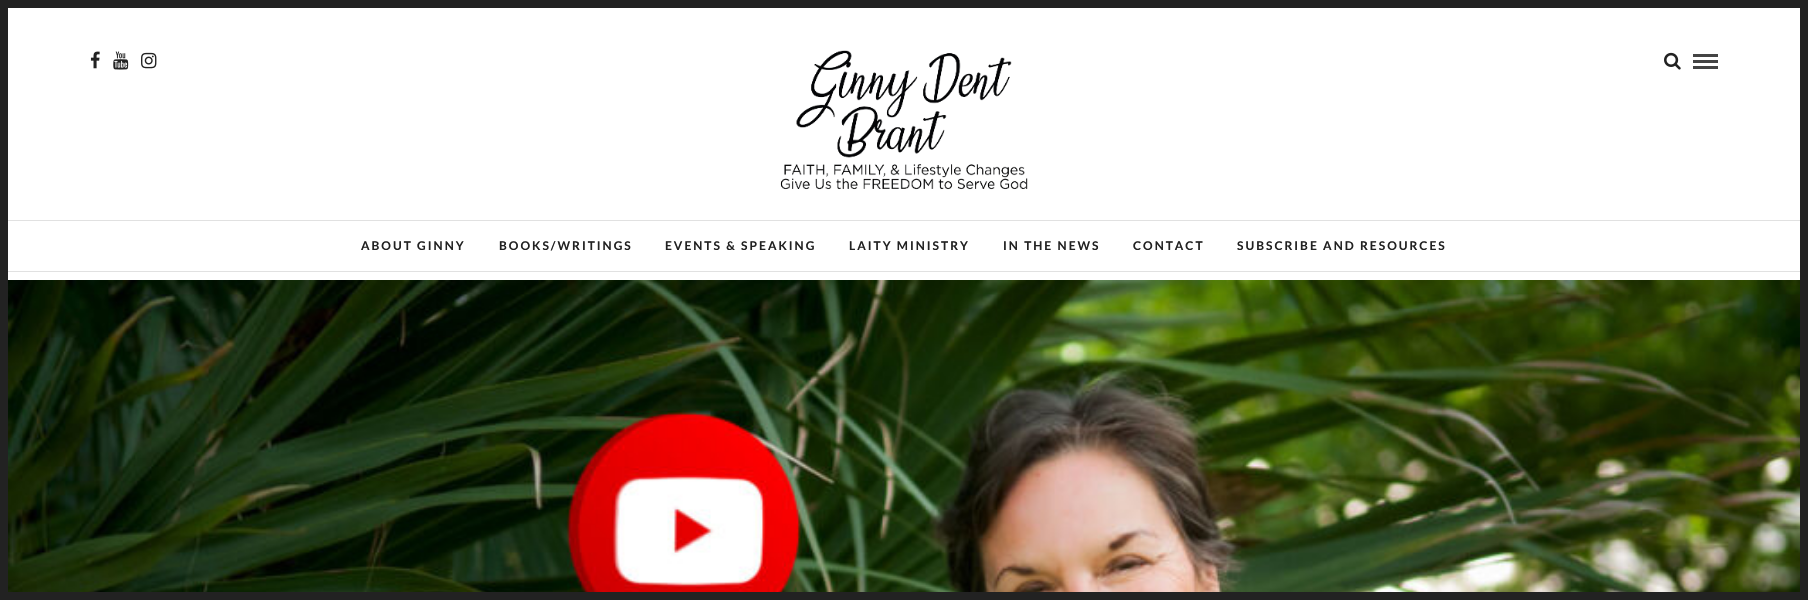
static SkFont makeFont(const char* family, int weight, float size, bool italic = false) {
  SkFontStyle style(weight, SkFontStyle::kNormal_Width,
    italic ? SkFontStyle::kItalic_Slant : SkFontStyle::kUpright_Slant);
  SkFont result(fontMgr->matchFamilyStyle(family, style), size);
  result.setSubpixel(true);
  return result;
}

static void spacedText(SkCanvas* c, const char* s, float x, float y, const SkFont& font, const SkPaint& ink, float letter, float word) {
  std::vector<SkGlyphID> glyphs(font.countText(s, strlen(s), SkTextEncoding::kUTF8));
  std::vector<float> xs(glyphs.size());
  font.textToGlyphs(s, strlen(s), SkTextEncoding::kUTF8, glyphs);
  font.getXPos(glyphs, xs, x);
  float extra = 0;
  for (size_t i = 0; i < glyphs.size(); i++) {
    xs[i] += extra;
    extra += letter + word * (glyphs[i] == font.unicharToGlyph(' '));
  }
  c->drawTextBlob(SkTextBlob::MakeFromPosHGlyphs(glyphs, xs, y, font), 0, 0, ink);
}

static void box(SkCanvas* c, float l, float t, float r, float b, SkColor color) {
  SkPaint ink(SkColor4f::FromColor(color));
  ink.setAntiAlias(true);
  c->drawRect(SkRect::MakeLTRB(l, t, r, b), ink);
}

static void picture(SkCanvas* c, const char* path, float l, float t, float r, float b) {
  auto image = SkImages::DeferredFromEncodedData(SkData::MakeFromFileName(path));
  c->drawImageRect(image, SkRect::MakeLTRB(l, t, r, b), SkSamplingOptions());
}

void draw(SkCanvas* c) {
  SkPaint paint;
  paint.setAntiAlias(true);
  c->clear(0xffffffff);
  box(c, 0, 0, 1808, 8, 0xff222222);
  box(c, 0, 271, 1808, 272, 0xffe1e1e1);
  box(c, 0, 220, 1808, 221, 0xffe1e1e1);
  box(c, 0, 592, 1808, 600, 0xff222222);
  box(c, 0, 0, 8, 600, 0xff222222);
  picture(c, "img_01.png", 90, 51, 100, 69);
  picture(c, "img_02.png", 113, 51, 129, 70);
  picture(c, "img_03.png", 141, 52, 157, 69);
  picture(c, "img_04.png", 780, 50, 1028, 190);
  picture(c, "img_05.png", 1664, 52, 1681, 70);
  box(c, 1693, 54, 1718, 57, 0xff444444);
  box(c, 1693, 60, 1718, 63, 0xff444444);
  box(c, 1693, 66, 1718, 69, 0xff444444);
  SkFont face1 = makeFont("Lato", 700, 12);
  paint.setColor(0xff222222);
  spacedText(c, "ABOUT GINNY", 361, 250, face1, paint, 2, 0);
  spacedText(c, "BOOKS/WRITINGS", 499, 250, face1, paint, 2, 0);
  spacedText(c, "EVENTS & SPEAKING", 665, 250, face1, paint, 2, 0);
  spacedText(c, "LAITY MINISTRY", 849, 250, face1, paint, 2, 0);
  spacedText(c, "IN THE NEWS", 1003, 250, face1, paint, 2, 0);
  spacedText(c, "CONTACT", 1133, 250, face1, paint, 2, 0);
  spacedText(c, "SUBSCRIBE AND RESOURCES", 1237, 250, face1, paint, 2, 0);
  picture(c, "img_06.png", 8, 280, 1800, 592);
  box(c, 1800, 0, 1808, 600, 0xff222222);
}
